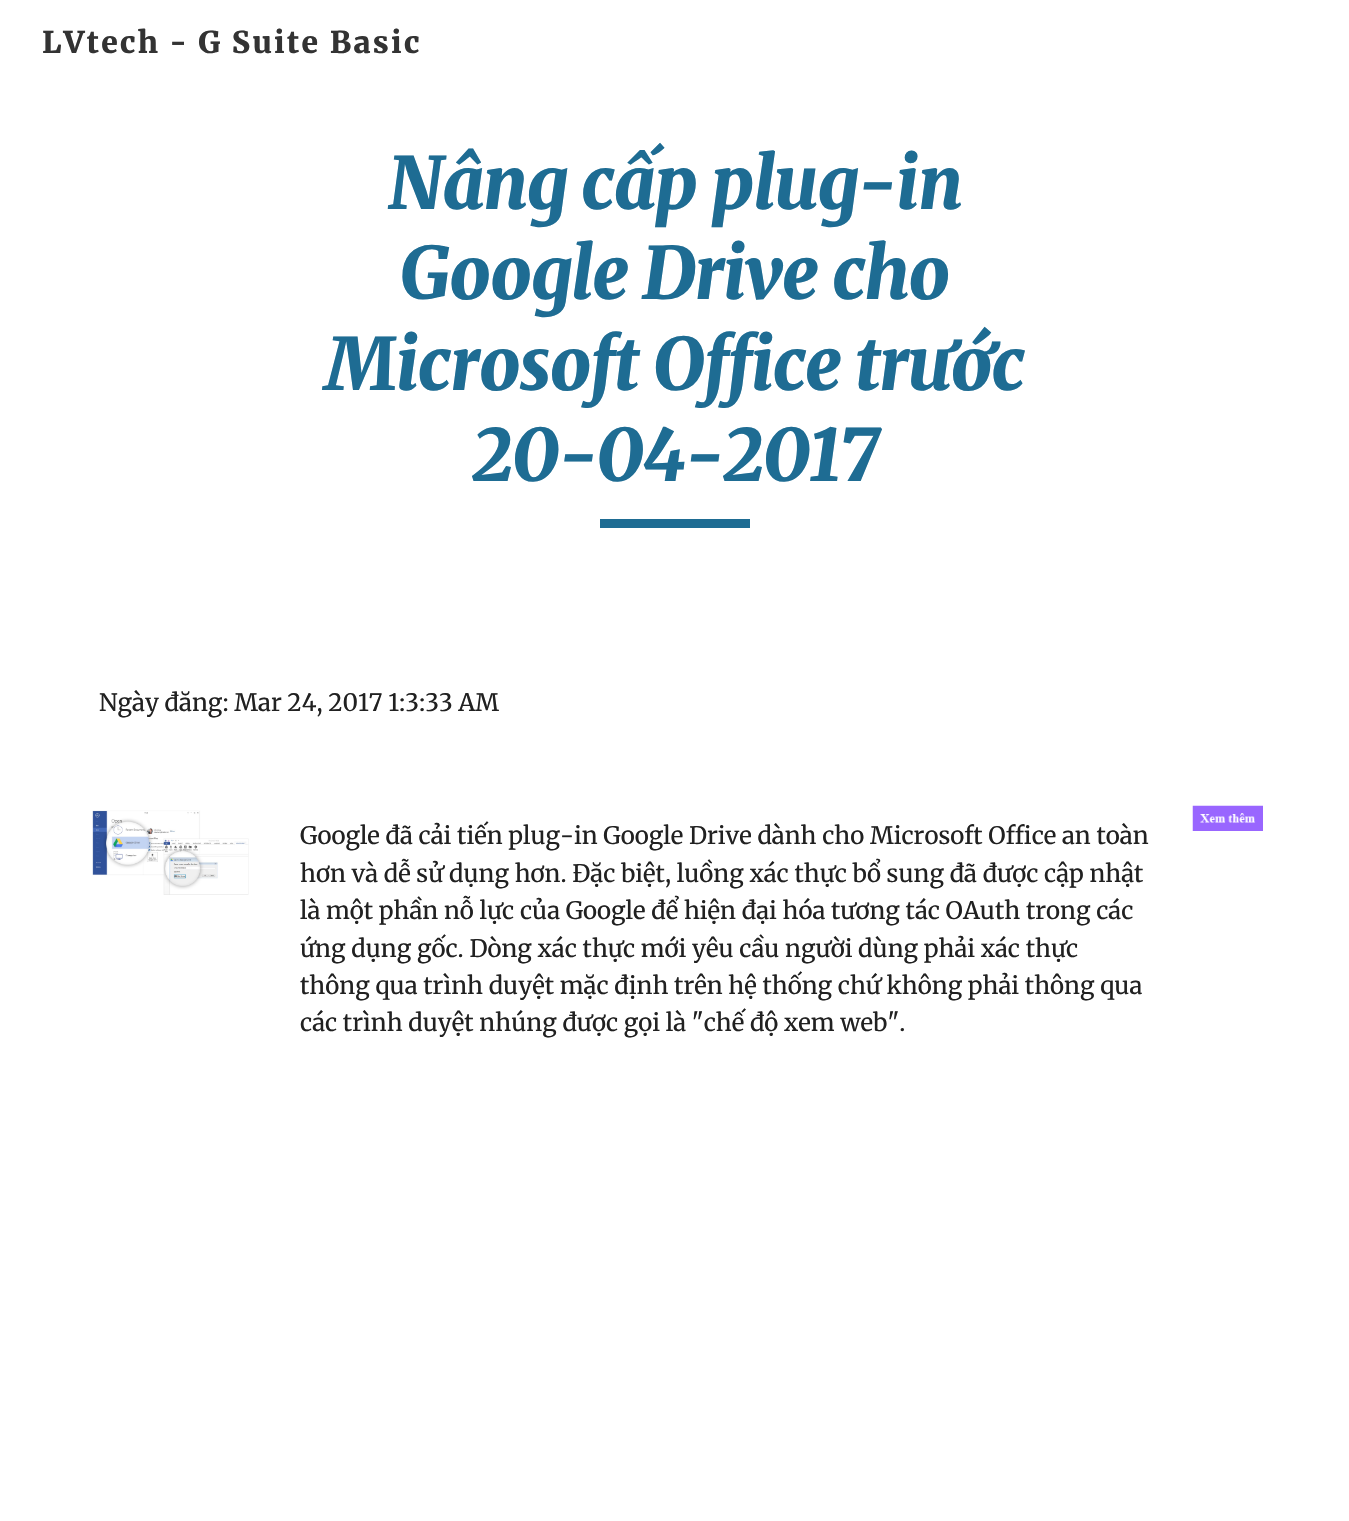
static SkFont makeFont(const char* family, int weight, float size, bool italic = false) {
  SkFontStyle style(weight, SkFontStyle::kNormal_Width,
    italic ? SkFontStyle::kItalic_Slant : SkFontStyle::kUpright_Slant);
  SkFont result(fontMgr->matchFamilyStyle(family, style), size);
  result.setSubpixel(true);
  return result;
}

static void text(SkCanvas* c, const char* s, float x, float y, const SkFont& font, SkColor color) {
  SkPaint ink(SkColor4f::FromColor(color));
  ink.setAntiAlias(true);
  c->drawString(s, x, y, font, ink);
}

static void spacedText(SkCanvas* c, const char* s, float x, float y, const SkFont& font, const SkPaint& ink, float letter, float word) {
  std::vector<SkGlyphID> glyphs(font.countText(s, strlen(s), SkTextEncoding::kUTF8));
  std::vector<float> xs(glyphs.size());
  font.textToGlyphs(s, strlen(s), SkTextEncoding::kUTF8, glyphs);
  font.getXPos(glyphs, xs, x);
  float extra = 0;
  for (size_t i = 0; i < glyphs.size(); i++) {
    xs[i] += extra;
    extra += letter + word * (glyphs[i] == font.unicharToGlyph(' '));
  }
  c->drawTextBlob(SkTextBlob::MakeFromPosHGlyphs(glyphs, xs, y, font), 0, 0, ink);
}

static void box(SkCanvas* c, float l, float t, float r, float b, SkColor color) {
  SkPaint ink(SkColor4f::FromColor(color));
  ink.setAntiAlias(true);
  c->drawRect(SkRect::MakeLTRB(l, t, r, b), ink);
}

static void picture(SkCanvas* c, const char* path, float l, float t, float r, float b) {
  auto image = SkImages::DeferredFromEncodedData(SkData::MakeFromFileName(path));
  c->drawImageRect(image, SkRect::MakeLTRB(l, t, r, b), SkSamplingOptions());
}

void draw(SkCanvas* c) {
  SkPaint paint;
  paint.setAntiAlias(true);
  c->clear(0xffffffff);
  SkFont face1 = makeFont("Merriweather", 900, 30);
  paint.setColor(0xff333333);
  spacedText(c, "LVtech - G Suite Basic", 42, 53, face1, paint, 2.25f, 0);
  SkFont face2 = makeFont("Merriweather", 900, 72, true);
  paint.setColor(0xff1e6c93);
  spacedText(c, "Nâng cấp plug-in", 388, 209, face2, paint, -1.35f, 0);
  spacedText(c, "Google Drive cho", 400, 299, face2, paint, -1.35f, 0);
  spacedText(c, "Microsoft Office trước", 325, 390, face2, paint, -1.35f, 0);
  spacedText(c, "20-04-2017", 472, 481, face2, paint, -1.35f, 0);
  box(c, 600, 519, 750, 528, 0xff1e6c93);
  SkFont face3 = makeFont("Merriweather", 400, 24);
  text(c, "Ngày đăng: Mar 24, 2017 1:3:33 AM", 99, 711, face3, 0xff212121);
  picture(c, "img_01.png", 92, 810, 249, 895);
  text(c, "Google đã cải tiến plug-in Google Drive dành cho Microsoft Office an toàn", 300, 844, face3, 0xff212121);
  text(c, "hơn và dễ sử dụng hơn. Đặc biệt, luồng xác thực bổ sung đã được cập nhật", 300, 882, face3, 0xff212121);
  text(c, "là một phần nỗ lực của Google để hiện đại hóa tương tác OAuth trong các", 300, 919, face3, 0xff212121);
  text(c, "ứng dụng gốc. Dòng xác thực mới yêu cầu người dùng phải xác thực", 300, 957, face3, 0xff212121);
  text(c, "thông qua trình duyệt mặc định trên hệ thống chứ không phải thông qua", 300, 994, face3, 0xff212121);
  text(c, "các trình duyệt nhúng được gọi là \"chế độ xem web\".", 300, 1031, face3, 0xff212121);
  picture(c, "img_02.png", 1192, 805, 1263, 831);
}
